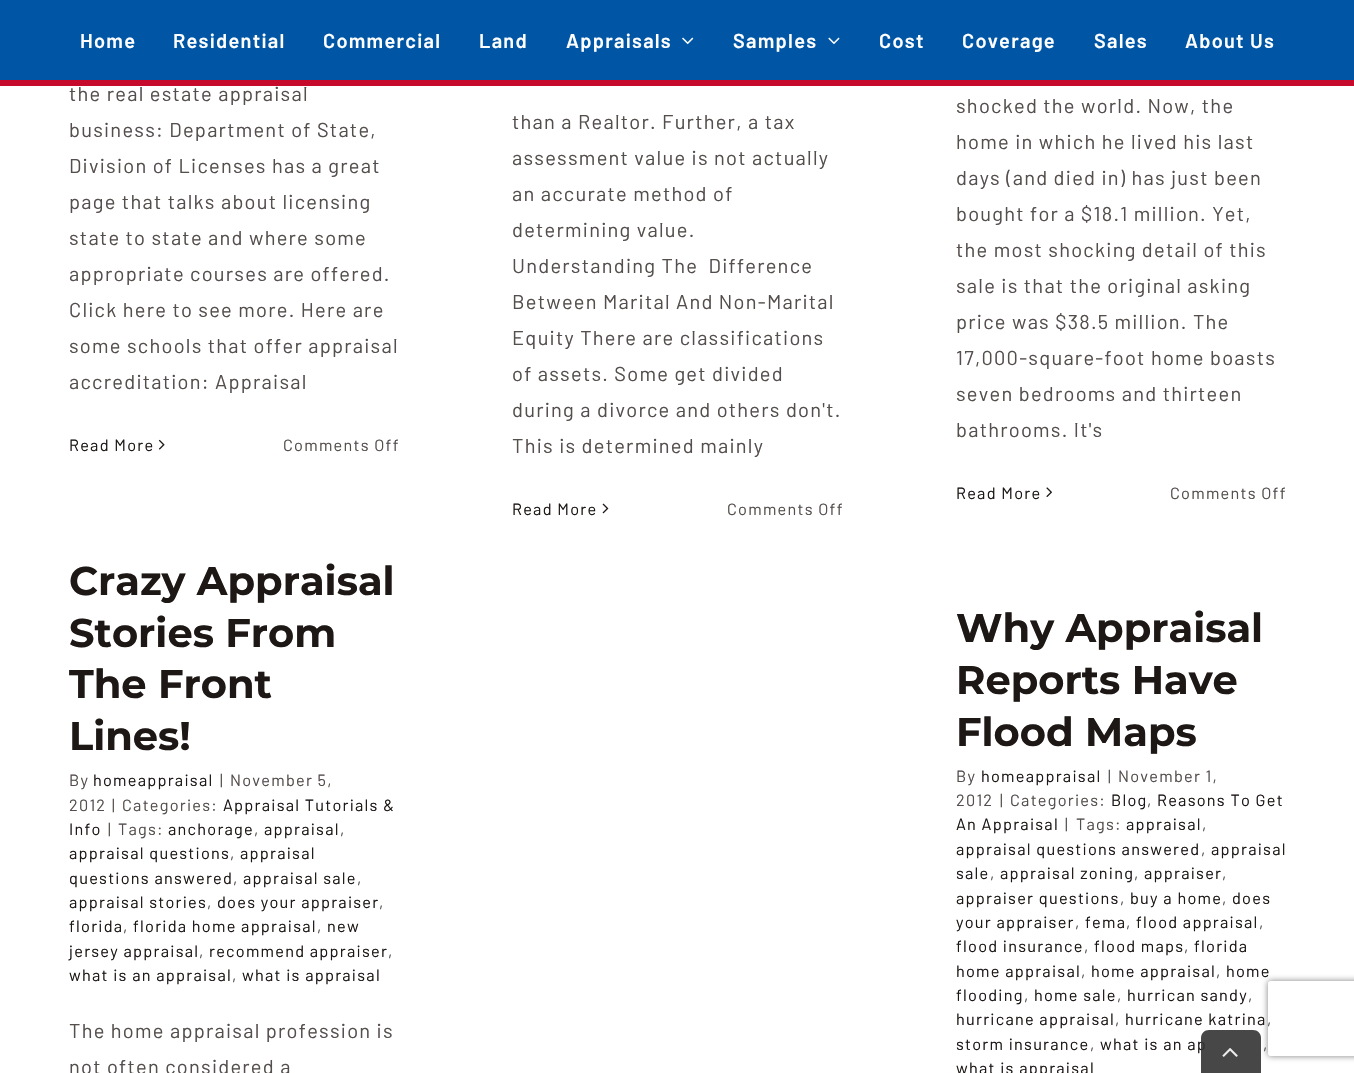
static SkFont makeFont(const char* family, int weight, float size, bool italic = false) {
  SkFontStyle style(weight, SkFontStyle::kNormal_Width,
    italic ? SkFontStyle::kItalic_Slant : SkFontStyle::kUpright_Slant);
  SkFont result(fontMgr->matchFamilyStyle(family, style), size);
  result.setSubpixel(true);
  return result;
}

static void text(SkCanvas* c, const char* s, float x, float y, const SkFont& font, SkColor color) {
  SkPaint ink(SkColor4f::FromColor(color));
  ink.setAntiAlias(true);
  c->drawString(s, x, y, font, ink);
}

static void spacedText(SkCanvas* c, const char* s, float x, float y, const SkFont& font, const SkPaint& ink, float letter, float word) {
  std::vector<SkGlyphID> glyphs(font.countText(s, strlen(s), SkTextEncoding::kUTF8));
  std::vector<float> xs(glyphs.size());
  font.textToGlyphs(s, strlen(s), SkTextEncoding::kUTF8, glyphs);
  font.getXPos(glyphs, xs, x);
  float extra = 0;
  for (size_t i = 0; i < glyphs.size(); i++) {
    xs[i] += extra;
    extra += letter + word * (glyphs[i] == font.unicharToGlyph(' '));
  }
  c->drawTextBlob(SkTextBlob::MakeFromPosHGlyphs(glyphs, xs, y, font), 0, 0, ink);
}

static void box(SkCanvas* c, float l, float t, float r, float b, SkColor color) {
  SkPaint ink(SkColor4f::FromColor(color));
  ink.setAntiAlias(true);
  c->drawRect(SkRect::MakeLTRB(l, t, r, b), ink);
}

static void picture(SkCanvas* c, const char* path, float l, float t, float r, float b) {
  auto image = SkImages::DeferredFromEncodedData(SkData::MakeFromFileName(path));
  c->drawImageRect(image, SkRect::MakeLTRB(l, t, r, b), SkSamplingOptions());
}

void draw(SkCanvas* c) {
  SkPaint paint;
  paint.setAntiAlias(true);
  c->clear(0xffffffff);
  box(c, 0, 0, 1354, 80, 0xff0055a5);
  box(c, 0, 80, 1354, 86, 0xffc60a2b);
  SkFont face1 = makeFont("Barlow", 600, 20);
  paint.setColor(0xffffffff);
  spacedText(c, "Home", 80, 48, face1, paint, 1.25f, 0);
  spacedText(c, "Residential", 173, 48, face1, paint, 1.25f, 0);
  spacedText(c, "Commercial", 323, 48, face1, paint, 1.25f, 0);
  spacedText(c, "Land", 479, 48, face1, paint, 1.25f, 0);
  spacedText(c, "Appraisals", 566, 48, face1, paint, 1.25f, 0);
  picture(c, "img_01.png", 682, 37, 694, 45);
  spacedText(c, "Samples", 733, 48, face1, paint, 1.25f, 0);
  picture(c, "img_02.png", 828, 37, 840, 45);
  spacedText(c, "Cost", 879, 48, face1, paint, 1.25f, 0);
  spacedText(c, "Coverage", 962, 48, face1, paint, 1.25f, 0);
  spacedText(c, "Sales", 1094, 48, face1, paint, 1.25f, 0);
  spacedText(c, "About Us", 1185, 48, face1, paint, 1.25f, 0);
  SkFont face2 = makeFont("Barlow", 400, 20);
  paint.setColor(0xff544e4c);
  spacedText(c, "the real estate appraisal", 69, 101, face2, paint, 1.25f, 0);
  spacedText(c, "business: Department of State,", 69, 137, face2, paint, 1.25f, 0);
  spacedText(c, "Division of Licenses has a great", 69, 173, face2, paint, 1.25f, 0);
  spacedText(c, "page that talks about licensing", 69, 209, face2, paint, 1.25f, 0);
  spacedText(c, "state to state and where some", 69, 245, face2, paint, 1.25f, 0);
  spacedText(c, "appropriate courses are offered.", 69, 281, face2, paint, 1.25f, 0);
  spacedText(c, "Click here to see more. Here are", 69, 317, face2, paint, 1.25f, 0);
  spacedText(c, "some schools that offer appraisal", 69, 353, face2, paint, 1.25f, 0);
  spacedText(c, "accreditation: Appraisal", 69, 389, face2, paint, 1.25f, 0);
  SkFont face3 = makeFont("Barlow", 400, 16.25f);
  paint.setColor(0xff1d1816);
  spacedText(c, "Read More", 69, 451, face3, paint, 1.25f, 0);
  picture(c, "img_03.png", 158, 439, 165, 450);
  paint.setColor(0xff544e4c);
  spacedText(c, "Comments Off", 283, 451, face3, paint, 1.25f, 0);
  spacedText(c, "than a Realtor. Further, a tax", 512, 129, face2, paint, 1.25f, 0);
  spacedText(c, "assessment value is not actually", 512, 165, face2, paint, 1.25f, 0);
  spacedText(c, "an accurate method of", 512, 201, face2, paint, 1.25f, 0);
  spacedText(c, "determining value.", 512, 237, face2, paint, 1.25f, 0);
  spacedText(c, "Understanding The  Difference", 512, 273, face2, paint, 1.25f, 0);
  spacedText(c, "Between Marital And Non-Marital", 512, 309, face2, paint, 1.25f, 0);
  spacedText(c, "Equity There are classifications", 512, 345, face2, paint, 1.25f, 0);
  spacedText(c, "of assets. Some get divided", 512, 381, face2, paint, 1.25f, 0);
  spacedText(c, "during a divorce and others don't.", 512, 417, face2, paint, 1.25f, 0);
  spacedText(c, "This is determined mainly", 512, 453, face2, paint, 1.25f, 0);
  paint.setColor(0xff1d1816);
  spacedText(c, "Read More", 512, 515, face3, paint, 1.25f, 0);
  picture(c, "img_04.png", 602, 503, 609, 514);
  paint.setColor(0xff544e4c);
  spacedText(c, "Comments Off", 727, 515, face3, paint, 1.25f, 0);
  spacedText(c, "shocked the world. Now, the", 956, 113, face2, paint, 1.25f, 0);
  spacedText(c, "home in which he lived his last", 956, 149, face2, paint, 1.25f, 0);
  spacedText(c, "days (and died in) has just been", 956, 185, face2, paint, 1.25f, 0);
  spacedText(c, "bought for a $18.1 million. Yet,", 956, 221, face2, paint, 1.25f, 0);
  spacedText(c, "the most shocking detail of this", 956, 257, face2, paint, 1.25f, 0);
  spacedText(c, "sale is that the original asking", 956, 293, face2, paint, 1.25f, 0);
  spacedText(c, "price was $38.5 million. The", 956, 329, face2, paint, 1.25f, 0);
  spacedText(c, "17,000-square-foot home boasts", 956, 365, face2, paint, 1.25f, 0);
  spacedText(c, "seven bedrooms and thirteen", 956, 401, face2, paint, 1.25f, 0);
  spacedText(c, "bathrooms. It's", 956, 437, face2, paint, 1.25f, 0);
  paint.setColor(0xff1d1816);
  spacedText(c, "Read More", 956, 499, face3, paint, 1.25f, 0);
  picture(c, "img_05.png", 1046, 487, 1052, 497);
  paint.setColor(0xff544e4c);
  spacedText(c, "Comments Off", 1170, 499, face3, paint, 1.25f, 0);
  SkFont face4 = makeFont("Montserrat", 100, 40);
  text(c, "Crazy Appraisal", 69, 595, face4, 0xff1d1816);
  text(c, "Stories From", 69, 647, face4, 0xff1d1816);
  text(c, "The Front", 69, 698, face4, 0xff1d1816);
  text(c, "Lines!", 69, 750, face4, 0xff1d1816);
  spacedText(c, "By", 69, 786, face3, paint, 1.25f, 0);
  paint.setColor(0xff1d1816);
  spacedText(c, "homeappraisal", 93, 786, face3, paint, 1.25f, 0);
  paint.setColor(0xff544e4c);
  spacedText(c, "|", 220, 786, face3, paint, 1.25f, 0);
  spacedText(c, "November 5,", 230, 786, face3, paint, 1.25f, 0);
  spacedText(c, "2012", 69, 811, face3, paint, 1.25f, 0);
  spacedText(c, "|", 112, 811, face3, paint, 1.25f, 0);
  spacedText(c, "Categories:", 122, 811, face3, paint, 1.25f, 0);
  paint.setColor(0xff1d1816);
  spacedText(c, "Appraisal Tutorials &", 223, 811, face3, paint, 1.25f, 0);
  spacedText(c, "Info", 69, 835, face3, paint, 1.25f, 0);
  paint.setColor(0xff544e4c);
  spacedText(c, "|", 108, 835, face3, paint, 1.25f, 0);
  spacedText(c, "Tags:", 118, 835, face3, paint, 1.25f, 0);
  paint.setColor(0xff1d1816);
  spacedText(c, "anchorage", 168, 835, face3, paint, 1.25f, 0);
  paint.setColor(0xff544e4c);
  spacedText(c, ",", 254, 835, face3, paint, 1.25f, 0);
  paint.setColor(0xff1d1816);
  spacedText(c, "appraisal", 264, 835, face3, paint, 1.25f, 0);
  paint.setColor(0xff544e4c);
  spacedText(c, ",", 340, 835, face3, paint, 1.25f, 0);
  paint.setColor(0xff1d1816);
  spacedText(c, "appraisal questions", 69, 859, face3, paint, 1.25f, 0);
  paint.setColor(0xff544e4c);
  spacedText(c, ",", 230, 859, face3, paint, 1.25f, 0);
  paint.setColor(0xff1d1816);
  spacedText(c, "appraisal", 240, 859, face3, paint, 1.25f, 0);
  spacedText(c, "questions answered", 69, 884, face3, paint, 1.25f, 0);
  paint.setColor(0xff544e4c);
  spacedText(c, ",", 233, 884, face3, paint, 1.25f, 0);
  paint.setColor(0xff1d1816);
  spacedText(c, "appraisal sale", 243, 884, face3, paint, 1.25f, 0);
  paint.setColor(0xff544e4c);
  spacedText(c, ",", 357, 884, face3, paint, 1.25f, 0);
  paint.setColor(0xff1d1816);
  spacedText(c, "appraisal stories", 69, 908, face3, paint, 1.25f, 0);
  paint.setColor(0xff544e4c);
  spacedText(c, ",", 207, 908, face3, paint, 1.25f, 0);
  paint.setColor(0xff1d1816);
  spacedText(c, "does your appraiser", 217, 908, face3, paint, 1.25f, 0);
  paint.setColor(0xff544e4c);
  spacedText(c, ",", 379, 908, face3, paint, 1.25f, 0);
  paint.setColor(0xff1d1816);
  spacedText(c, "florida", 69, 932, face3, paint, 1.25f, 0);
  paint.setColor(0xff544e4c);
  spacedText(c, ",", 123, 932, face3, paint, 1.25f, 0);
  paint.setColor(0xff1d1816);
  spacedText(c, "florida home appraisal", 133, 932, face3, paint, 1.25f, 0);
  paint.setColor(0xff544e4c);
  spacedText(c, ",", 317, 932, face3, paint, 1.25f, 0);
  paint.setColor(0xff1d1816);
  spacedText(c, "new", 327, 932, face3, paint, 1.25f, 0);
  spacedText(c, "jersey appraisal", 69, 957, face3, paint, 1.25f, 0);
  paint.setColor(0xff544e4c);
  spacedText(c, ",", 199, 957, face3, paint, 1.25f, 0);
  paint.setColor(0xff1d1816);
  spacedText(c, "recommend appraiser", 209, 957, face3, paint, 1.25f, 0);
  paint.setColor(0xff544e4c);
  spacedText(c, ",", 388, 957, face3, paint, 1.25f, 0);
  paint.setColor(0xff1d1816);
  spacedText(c, "what is an appraisal", 69, 981, face3, paint, 1.25f, 0);
  paint.setColor(0xff544e4c);
  spacedText(c, ",", 232, 981, face3, paint, 1.25f, 0);
  paint.setColor(0xff1d1816);
  spacedText(c, "what is appraisal", 242, 981, face3, paint, 1.25f, 0);
  paint.setColor(0xff544e4c);
  spacedText(c, "The home appraisal profession is", 69, 1038, face2, paint, 1.25f, 0);
  spacedText(c, "not often considered a", 69, 1074, face2, paint, 1.25f, 0);
  text(c, "Why Appraisal", 956, 642, face4, 0xff1d1816);
  text(c, "Reports Have", 956, 694, face4, 0xff1d1816);
  text(c, "Flood Maps", 956, 746, face4, 0xff1d1816);
  spacedText(c, "By", 956, 782, face3, paint, 1.25f, 0);
  paint.setColor(0xff1d1816);
  spacedText(c, "homeappraisal", 981, 782, face3, paint, 1.25f, 0);
  paint.setColor(0xff544e4c);
  spacedText(c, "|", 1108, 782, face3, paint, 1.25f, 0);
  spacedText(c, "November 1,", 1118, 782, face3, paint, 1.25f, 0);
  spacedText(c, "2012", 956, 806, face3, paint, 1.25f, 0);
  spacedText(c, "|", 1000, 806, face3, paint, 1.25f, 0);
  spacedText(c, "Categories:", 1010, 806, face3, paint, 1.25f, 0);
  paint.setColor(0xff1d1816);
  spacedText(c, "Blog", 1111, 806, face3, paint, 1.25f, 0);
  paint.setColor(0xff544e4c);
  spacedText(c, ",", 1147, 806, face3, paint, 1.25f, 0);
  paint.setColor(0xff1d1816);
  spacedText(c, "Reasons To Get", 1157, 806, face3, paint, 1.25f, 0);
  spacedText(c, "An Appraisal", 956, 830, face3, paint, 1.25f, 0);
  paint.setColor(0xff544e4c);
  spacedText(c, "|", 1065, 830, face3, paint, 1.25f, 0);
  spacedText(c, "Tags:", 1076, 830, face3, paint, 1.25f, 0);
  paint.setColor(0xff1d1816);
  spacedText(c, "appraisal", 1126, 830, face3, paint, 1.25f, 0);
  paint.setColor(0xff544e4c);
  spacedText(c, ",", 1202, 830, face3, paint, 1.25f, 0);
  paint.setColor(0xff1d1816);
  spacedText(c, "appraisal questions answered", 956, 855, face3, paint, 1.25f, 0);
  paint.setColor(0xff544e4c);
  spacedText(c, ",", 1201, 855, face3, paint, 1.25f, 0);
  paint.setColor(0xff1d1816);
  spacedText(c, "appraisal", 1211, 855, face3, paint, 1.25f, 0);
  spacedText(c, "sale", 956, 879, face3, paint, 1.25f, 0);
  paint.setColor(0xff544e4c);
  spacedText(c, ",", 990, 879, face3, paint, 1.25f, 0);
  paint.setColor(0xff1d1816);
  spacedText(c, "appraisal zoning", 1000, 879, face3, paint, 1.25f, 0);
  paint.setColor(0xff544e4c);
  spacedText(c, ",", 1134, 879, face3, paint, 1.25f, 0);
  paint.setColor(0xff1d1816);
  spacedText(c, "appraiser", 1144, 879, face3, paint, 1.25f, 0);
  paint.setColor(0xff544e4c);
  spacedText(c, ",", 1222, 879, face3, paint, 1.25f, 0);
  paint.setColor(0xff1d1816);
  spacedText(c, "appraiser questions", 956, 904, face3, paint, 1.25f, 0);
  paint.setColor(0xff544e4c);
  spacedText(c, ",", 1120, 904, face3, paint, 1.25f, 0);
  paint.setColor(0xff1d1816);
  spacedText(c, "buy a home", 1130, 904, face3, paint, 1.25f, 0);
  paint.setColor(0xff544e4c);
  spacedText(c, ",", 1222, 904, face3, paint, 1.25f, 0);
  paint.setColor(0xff1d1816);
  spacedText(c, "does", 1232, 904, face3, paint, 1.25f, 0);
  spacedText(c, "your appraiser", 956, 928, face3, paint, 1.25f, 0);
  paint.setColor(0xff544e4c);
  spacedText(c, ",", 1075, 928, face3, paint, 1.25f, 0);
  paint.setColor(0xff1d1816);
  spacedText(c, "fema", 1085, 928, face3, paint, 1.25f, 0);
  paint.setColor(0xff544e4c);
  spacedText(c, ",", 1126, 928, face3, paint, 1.25f, 0);
  paint.setColor(0xff1d1816);
  spacedText(c, "flood appraisal", 1136, 928, face3, paint, 1.25f, 0);
  paint.setColor(0xff544e4c);
  spacedText(c, ",", 1259, 928, face3, paint, 1.25f, 0);
  paint.setColor(0xff1d1816);
  spacedText(c, "flood insurance", 956, 952, face3, paint, 1.25f, 0);
  paint.setColor(0xff544e4c);
  spacedText(c, ",", 1084, 952, face3, paint, 1.25f, 0);
  paint.setColor(0xff1d1816);
  spacedText(c, "flood maps", 1094, 952, face3, paint, 1.25f, 0);
  paint.setColor(0xff544e4c);
  spacedText(c, ",", 1184, 952, face3, paint, 1.25f, 0);
  paint.setColor(0xff1d1816);
  spacedText(c, "florida", 1194, 952, face3, paint, 1.25f, 0);
  spacedText(c, "home appraisal", 956, 977, face3, paint, 1.25f, 0);
  paint.setColor(0xff544e4c);
  spacedText(c, ",", 1081, 977, face3, paint, 1.25f, 0);
  paint.setColor(0xff1d1816);
  spacedText(c, "home appraisal", 1091, 977, face3, paint, 1.25f, 0);
  paint.setColor(0xff544e4c);
  spacedText(c, ",", 1216, 977, face3, paint, 1.25f, 0);
  c->save();
  c->clipPath(SkPathBuilder(SkPathFillType::kEvenOdd).moveTo(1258, 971).lineTo(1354, 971).lineTo(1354, 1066).lineTo(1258, 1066).close().moveTo(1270.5f, 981).lineTo(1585.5f, 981).cubicTo(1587, 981, 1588, 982, 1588, 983.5f).lineTo(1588, 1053.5f).cubicTo(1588, 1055, 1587, 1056, 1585.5f, 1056).lineTo(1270.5f, 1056).cubicTo(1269, 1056, 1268, 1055, 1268, 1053.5f).lineTo(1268, 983.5f).cubicTo(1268, 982, 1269, 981, 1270.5f, 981).close().detach(), true);
  paint.setColor(0xff808080);
  paint.setMaskFilter(SkMaskFilter::MakeBlur(kNormal_SkBlurStyle, 3));
  c->drawRoundRect(SkRect::MakeLTRB(1268, 981, 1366, 1056), 2.5f, 2.5f, paint);
  paint.setMaskFilter(nullptr);
  c->restore();
  paint.setColor(0xff1d1816);
  spacedText(c, "home", 1226, 977, face3, paint, 1.25f, 0);
  spacedText(c, "flooding", 956, 1001, face3, paint, 1.25f, 0);
  paint.setColor(0xff544e4c);
  spacedText(c, ",", 1024, 1001, face3, paint, 1.25f, 0);
  paint.setColor(0xff1d1816);
  spacedText(c, "home sale", 1034, 1001, face3, paint, 1.25f, 0);
  paint.setColor(0xff544e4c);
  spacedText(c, ",", 1117, 1001, face3, paint, 1.25f, 0);
  paint.setColor(0xff1d1816);
  spacedText(c, "hurrican sandy", 1127, 1001, face3, paint, 1.25f, 0);
  paint.setColor(0xff544e4c);
  spacedText(c, ",", 1248, 1001, face3, paint, 1.25f, 0);
  paint.setColor(0xff1d1816);
  spacedText(c, "hurricane appraisal", 956, 1025, face3, paint, 1.25f, 0);
  paint.setColor(0xff544e4c);
  spacedText(c, ",", 1115, 1025, face3, paint, 1.25f, 0);
  paint.setColor(0xff1d1816);
  spacedText(c, "hurricane katrina", 1125, 1025, face3, paint, 1.25f, 0);
  paint.setColor(0xff544e4c);
  spacedText(c, ",", 1267, 1025, face3, paint, 1.25f, 0);
  paint.setColor(0xff1d1816);
  spacedText(c, "storm insurance", 956, 1050, face3, paint, 1.25f, 0);
  paint.setColor(0xff544e4c);
  spacedText(c, ",", 1090, 1050, face3, paint, 1.25f, 0);
  paint.setColor(0xff1d1816);
  spacedText(c, "what is an ap", 1100, 1050, face3, paint, 1.25f, 0);
  paint.setColor(0xff544e4c);
  spacedText(c, ",", 1263, 1050, face3, paint, 1.25f, 0);
  paint.setColor(0xff1d1816);
  spacedText(c, "what is appraisal", 956, 1074, face3, paint, 1.25f, 0);
  paint.setColor(0xe6333333);
  c->drawPath(SkPathBuilder().moveTo(1209, 1030).lineTo(1253, 1030).cubicTo(1257.5f, 1030, 1261, 1033.5f, 1261, 1038).lineTo(1261, 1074).lineTo(1201, 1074).lineTo(1201, 1038).cubicTo(1201, 1033.5f, 1204.5f, 1030, 1209, 1030).close().detach(), paint);
  picture(c, "img_06.png", 1222, 1048, 1238, 1057);
}
